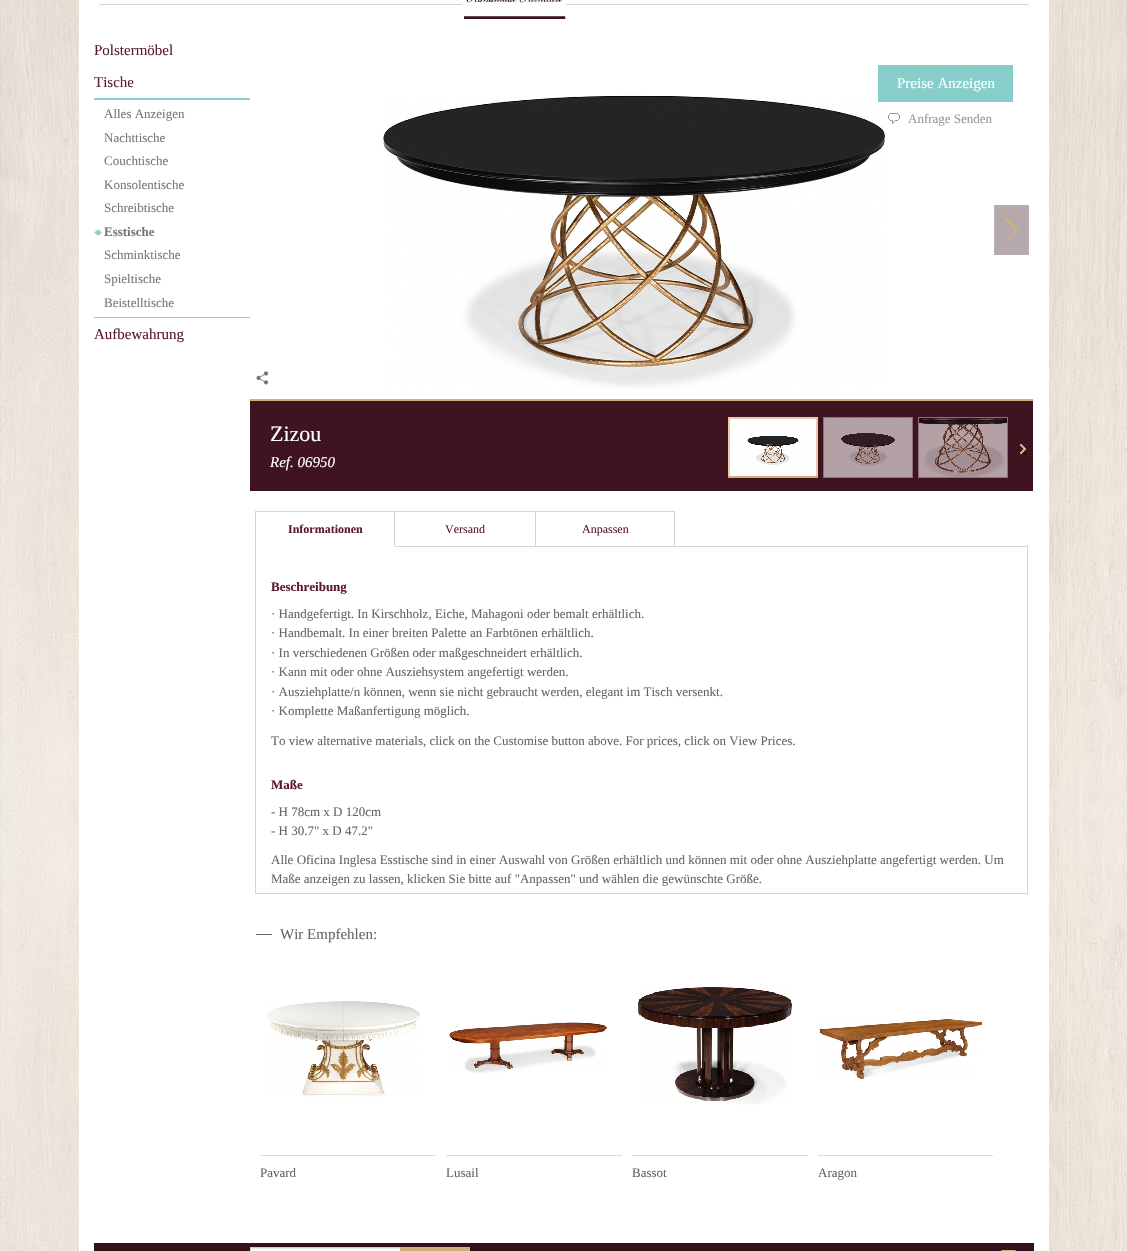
static SkFont makeFont(const char* family, int weight, float size, bool italic = false) {
  SkFontStyle style(weight, SkFontStyle::kNormal_Width,
    italic ? SkFontStyle::kItalic_Slant : SkFontStyle::kUpright_Slant);
  SkFont result(fontMgr->matchFamilyStyle(family, style), size);
  result.setSubpixel(true);
  return result;
}

static void text(SkCanvas* c, const char* s, float x, float y, const SkFont& font, SkColor color) {
  SkPaint ink(SkColor4f::FromColor(color));
  ink.setAntiAlias(true);
  c->drawString(s, x, y, font, ink);
}

static void box(SkCanvas* c, float l, float t, float r, float b, SkColor color) {
  SkPaint ink(SkColor4f::FromColor(color));
  ink.setAntiAlias(true);
  c->drawRect(SkRect::MakeLTRB(l, t, r, b), ink);
}

static void picture(SkCanvas* c, const char* path, float l, float t, float r, float b) {
  auto image = SkImages::DeferredFromEncodedData(SkData::MakeFromFileName(path));
  c->drawImageRect(image, SkRect::MakeLTRB(l, t, r, b), SkSamplingOptions());
}

void draw(SkCanvas* c) {
  SkPaint paint;
  paint.setAntiAlias(true);
  c->clear(0xffffffff);
  picture(c, "img_01.png", 0, 0, 1127, 1251);
  box(c, 79, 0, 1049, 1251, 0xffffffff);
  box(c, 99, 4, 1029, 5, 0xffdbd4cc);
  box(c, 462, 4, 565, 5, 0xffffffff);
  picture(c, "img_02.png", 464, 0, 566, 19);
  SkFont face1 = makeFont("Liberation Serif", 400, 15);
  text(c, "Polstermöbel", 94, 55, face1, 0xff5b1b2c);
  text(c, "Tische", 94, 87, face1, 0xff5b1b2c);
  box(c, 94, 98, 250, 100, 0xff8cd0cd);
  SkFont face2 = makeFont("Liberation Serif", 400, 13);
  text(c, "Alles Anzeigen", 104, 118, face2, 0xff777777);
  text(c, "Nachttische", 104, 142, face2, 0xff777777);
  text(c, "Couchtische", 104, 165, face2, 0xff777777);
  text(c, "Konsolentische", 104, 189, face2, 0xff777777);
  text(c, "Schreibtische", 104, 212, face2, 0xff777777);
  picture(c, "img_03.png", 94, 229, 102, 236);
  SkFont face3 = makeFont("Liberation Serif", 700, 13);
  text(c, "Esstische", 104, 236, face3, 0xff777777);
  text(c, "Schminktische", 104, 259, face2, 0xff777777);
  text(c, "Spieltische", 104, 283, face2, 0xff777777);
  box(c, 94, 317, 250, 318, 0xff8cd0cd);
  text(c, "Beistelltische", 104, 307, face2, 0xff777777);
  text(c, "Aufbewahrung", 94, 339, face1, 0xff5b1b2c);
  picture(c, "img_06.png", 382, 95, 886, 389);
  box(c, 878, 65, 1013, 102, 0xff87cecb);
  text(c, "Preise Anzeigen", 897, 88, face1, 0xffffffff);
  picture(c, "img_04.png", 888, 113, 900, 124);
  text(c, "Anfrage Senden", 908, 123, face2, 0xff999999);
  picture(c, "img_05.png", 256, 371, 269, 385);
  picture(c, "img_07.png", 994, 205, 1029, 255);
  box(c, 250, 401, 1033, 491, 0xff3f131f);
  box(c, 250, 399, 1033, 401, 0xffd2b07e);
  SkFont face4 = makeFont("Liberation Serif", 400, 22);
  text(c, "Zizou", 270, 441, face4, 0xffffffff);
  SkFont face5 = makeFont("Liberation Serif", 400, 15, true);
  text(c, "Ref. 06950", 270, 467, face5, 0xffffffff);
  box(c, 728, 417, 818, 419, 0xffe6cda8);
  paint.setColor(0xffe6cda8);
  c->drawPath(SkPathBuilder().moveTo(818, 417).lineTo(818, 478).lineTo(816, 476).lineTo(816, 419).close().detach(), paint);
  paint.setColor(0xffd2b07e);
  c->drawPath(SkPathBuilder().moveTo(818, 478).lineTo(728, 478).lineTo(730, 476).lineTo(816, 476).close().detach(), paint);
  paint.setColor(0xffe6cda8);
  c->drawPath(SkPathBuilder().moveTo(728, 478).lineTo(728, 417).lineTo(730, 419).lineTo(730, 476).close().detach(), paint);
  picture(c, "img_08.png", 730, 419, 816, 476);
  paint.setStyle(SkPaint::kStroke_Style);
  paint.setStrokeWidth(1);
  paint.setColor(0xff8b7178);
  c->drawRect(SkRect::MakeLTRB(823.5f, 417.5f, 912.5f, 477.5f), paint);
  picture(c, "img_09.png", 824, 418, 912, 477);
  c->drawRect(SkRect::MakeLTRB(918.5f, 417.5f, 1007.5f, 477.5f), paint);
  picture(c, "img_10.png", 919, 418, 1007, 477);
  picture(c, "img_11.png", 1020, 444, 1026, 454);
  picture(c, "img_12.png", 1023, 453, 1027, 454);
  box(c, 255, 511, 675, 512, 0xffdbd4cc);
  paint.setColor(0xffdbd4cc);
  c->drawRect(SkRect::MakeLTRB(255.5f, 546.5f, 1027.5f, 893.5f), paint);
  box(c, 394, 511, 395, 547, 0xffdbd4cc);
  box(c, 255, 546, 395, 547, 0xffffffff);
  box(c, 255, 511, 256, 547, 0xffdbd4cc);
  SkFont face6 = makeFont("Liberation Serif", 700, 12);
  text(c, "Informationen", 288, 533, face6, 0xff5b1b2c);
  SkFont face7 = makeFont("Liberation Serif", 400, 12);
  text(c, "Versand", 445, 533, face7, 0xff5b1b2c);
  box(c, 674, 511, 675, 546, 0xffdbd4cc);
  box(c, 535, 511, 536, 546, 0xffdbd4cc);
  text(c, "Anpassen", 582, 533, face7, 0xff5b1b2c);
  text(c, "Beschreibung", 271, 591, face3, 0xff5b1b2c);
  text(c, "· Handgefertigt. In Kirschholz, Eiche, Mahagoni oder bemalt erhältlich.", 271, 618, face2, 0xff666666);
  text(c, "· Handbemalt. In einer breiten Palette an Farbtönen erhältlich.", 271, 637, face2, 0xff666666);
  text(c, "· In verschiedenen Größen oder maßgeschneidert erhältlich.", 271, 657, face2, 0xff666666);
  text(c, "· Kann mit oder ohne Ausziehsystem angefertigt werden.", 271, 676, face2, 0xff666666);
  text(c, "· Ausziehplatte/n können, wenn sie nicht gebraucht werden, elegant im Tisch versenkt.", 271, 696, face2, 0xff666666);
  text(c, "· Komplette Maßanfertigung möglich.", 271, 715, face2, 0xff666666);
  text(c, "To view alternative materials, click on the Customise button above. For prices, click on View Prices.", 271, 745, face2, 0xff666666);
  text(c, "Maße", 271, 789, face3, 0xff5b1b2c);
  text(c, "- H 78cm x D 120cm", 271, 816, face2, 0xff666666);
  text(c, "- H 30.7\" x D 47.2\"", 271, 835, face2, 0xff666666);
  text(c, "Alle Oficina Inglesa Esstische sind in einer Auswahl von Größen erhältlich und können mit oder ohne Ausziehplatte angefertigt werden. Um", 271, 864, face2, 0xff666666);
  text(c, "Maße anzeigen zu lassen, klicken Sie bitte auf \"Anpassen\" und wählen die gewünschte Größe.", 271, 883, face2, 0xff666666);
  box(c, 256, 934, 272, 935, 0xff666666);
  text(c, "Wir Empfehlen:", 280, 939, face1, 0xff666666);
  picture(c, "img_13.png", 266, 1001, 420, 1097);
  box(c, 260, 1155, 436, 1156, 0xffe2d9cf);
  text(c, "Pavard", 260, 1177, face2, 0xff666666);
  picture(c, "img_14.png", 449, 1022, 607, 1073);
  box(c, 446, 1155, 622, 1156, 0xffe2d9cf);
  text(c, "Lusail", 446, 1177, face2, 0xff666666);
  picture(c, "img_15.png", 637, 987, 792, 1105);
  box(c, 632, 1155, 808, 1156, 0xffe2d9cf);
  text(c, "Bassot", 632, 1177, face2, 0xff666666);
  picture(c, "img_16.png", 819, 1018, 982, 1080);
  box(c, 818, 1155, 993, 1156, 0xffe2d9cf);
  text(c, "Aragon", 818, 1177, face2, 0xff666666);
  box(c, 94, 1243, 1034, 1251, 0xff33111a);
  box(c, 250, 1249, 400, 1251, 0xffffffff);
  box(c, 251, 1248, 400, 1249, 0xffececec);
  box(c, 250, 1247, 400, 1248, 0xffd4ccc4);
  box(c, 250, 1247, 251, 1251, 0xffd4ccc4);
  box(c, 400, 1247, 470, 1251, 0xffd2b07e);
  picture(c, "img_17.png", 1001, 1250, 1017, 1251);
}
